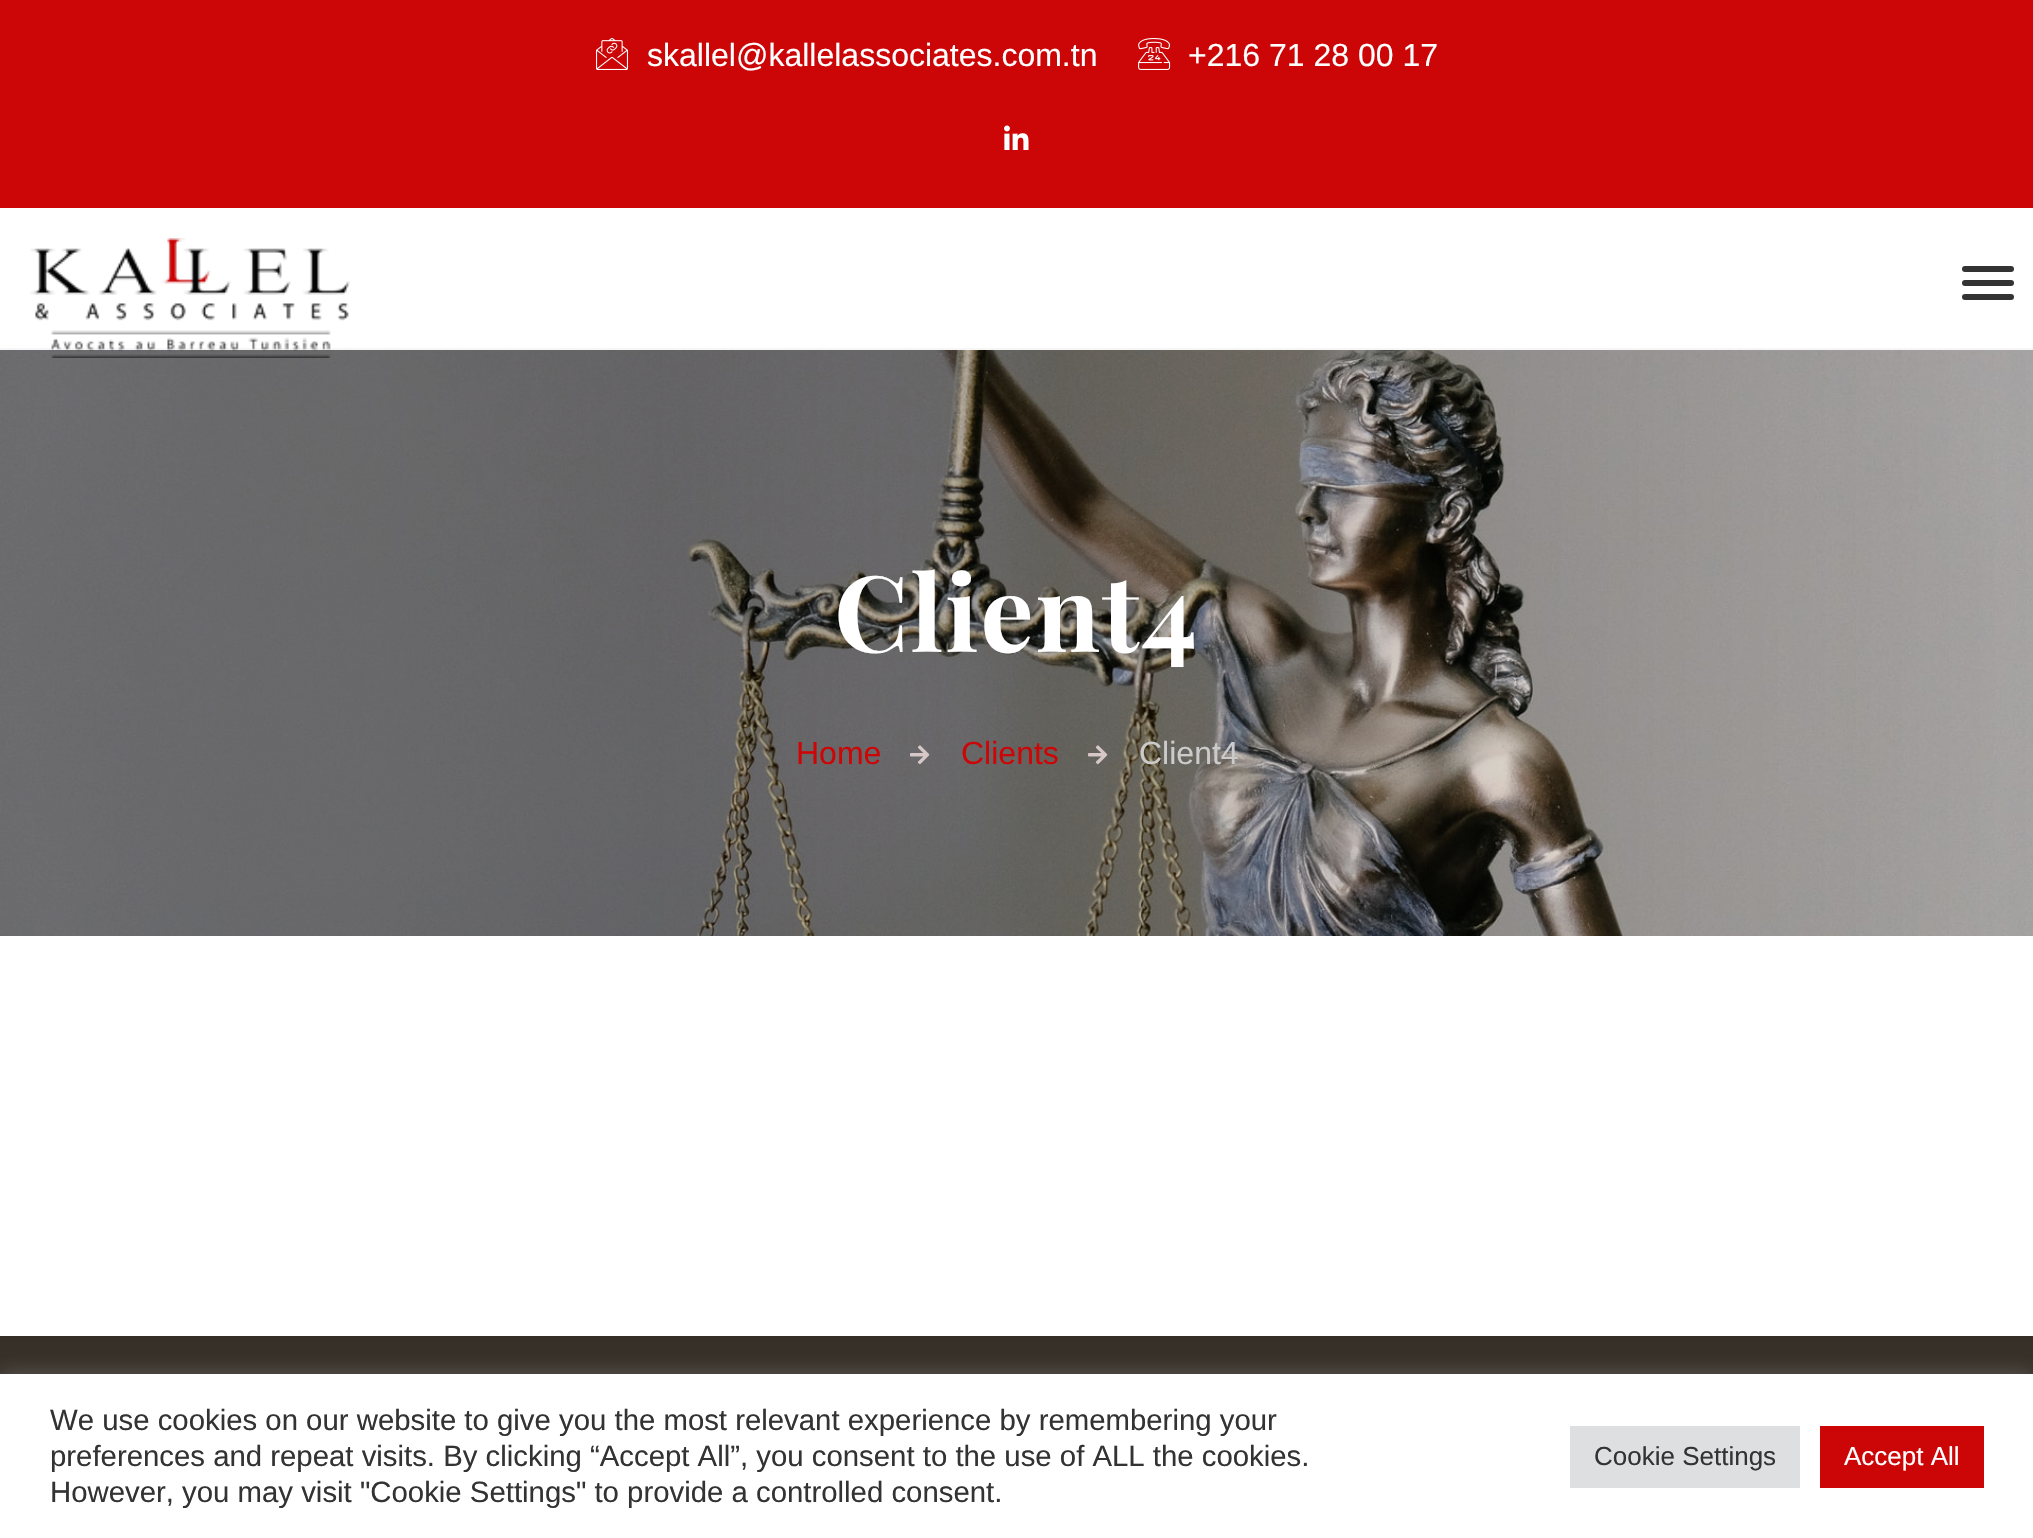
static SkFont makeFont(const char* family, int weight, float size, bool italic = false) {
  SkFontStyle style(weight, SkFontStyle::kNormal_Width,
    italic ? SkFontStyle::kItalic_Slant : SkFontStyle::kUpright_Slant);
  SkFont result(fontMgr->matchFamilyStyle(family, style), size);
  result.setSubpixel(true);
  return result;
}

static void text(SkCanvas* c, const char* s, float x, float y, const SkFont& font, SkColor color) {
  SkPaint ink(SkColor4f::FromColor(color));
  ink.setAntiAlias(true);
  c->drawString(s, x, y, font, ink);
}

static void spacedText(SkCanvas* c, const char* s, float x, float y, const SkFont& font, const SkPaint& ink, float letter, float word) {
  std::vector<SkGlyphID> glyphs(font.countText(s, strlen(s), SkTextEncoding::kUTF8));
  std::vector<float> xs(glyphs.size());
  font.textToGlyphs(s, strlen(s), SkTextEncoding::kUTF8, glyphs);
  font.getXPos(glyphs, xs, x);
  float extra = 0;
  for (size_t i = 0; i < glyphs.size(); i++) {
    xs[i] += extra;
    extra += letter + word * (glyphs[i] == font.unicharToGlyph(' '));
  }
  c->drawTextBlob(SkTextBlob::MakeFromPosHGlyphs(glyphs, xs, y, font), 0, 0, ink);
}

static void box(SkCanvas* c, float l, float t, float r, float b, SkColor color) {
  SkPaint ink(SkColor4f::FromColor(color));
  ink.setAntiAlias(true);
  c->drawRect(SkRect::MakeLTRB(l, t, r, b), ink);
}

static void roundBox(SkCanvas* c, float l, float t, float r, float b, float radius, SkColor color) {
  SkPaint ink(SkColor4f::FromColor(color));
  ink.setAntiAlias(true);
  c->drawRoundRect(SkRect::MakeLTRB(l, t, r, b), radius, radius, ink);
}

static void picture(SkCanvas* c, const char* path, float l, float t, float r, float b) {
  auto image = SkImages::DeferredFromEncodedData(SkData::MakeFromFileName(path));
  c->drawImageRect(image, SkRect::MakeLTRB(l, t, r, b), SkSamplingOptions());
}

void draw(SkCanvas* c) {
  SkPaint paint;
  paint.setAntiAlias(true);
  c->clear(0xffffffff);
  box(c, 0, 0, 2033, 208, 0xffcc0607);
  picture(c, "img_01.png", 596, 38, 628, 70);
  SkFont face1 = makeFont("Liberation Sans", 400, 32);
  text(c, "skallel@kallelassociates.com.tn", 647, 66, face1, 0xffffffff);
  picture(c, "img_02.png", 1138, 38, 1171, 70);
  text(c, "+216 71 28 00 17", 1188, 66, face1, 0xffffffff);
  picture(c, "img_03.png", 1004, 125, 1029, 150);
  box(c, 0, 348, 2033, 350, 0xfff6f6f6);
  picture(c, "img_05.png", 0, 350, 2033, 936);
  picture(c, "img_04.png", 30, 238, 350, 358);
  roundBox(c, 1962, 266, 2014, 272, 3, 0xff333333);
  roundBox(c, 1962, 280, 2014, 286, 3, 0xff333333);
  roundBox(c, 1962, 294, 2014, 300, 3, 0xff333333);
  SkFont face2 = makeFont("Playfair Display", 700, 105.5f);
  paint.setColor(0xffffffff);
  spacedText(c, "Client4", 834, 652, face2, paint, 2, 0);
  text(c, "Home", 796, 764, face1, 0xffcc0607);
  picture(c, "img_06.png", 910, 745, 930, 765);
  text(c, "Clients", 961, 764, face1, 0xffcc0607);
  picture(c, "img_07.png", 1088, 745, 1108, 765);
  text(c, "Client4", 1139, 764, face1, 0xffcbcbcb);
  box(c, 0, 1336, 2033, 1374, 0xff352f27);
  paint.setColor(0x4dacabab);
  paint.setMaskFilter(SkMaskFilter::MakeBlur(kNormal_SkBlurStyle, 10));
  c->drawRect(SkRect::MakeLTRB(0, 1372, 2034, 1536), paint);
  paint.setMaskFilter(nullptr);
  box(c, 0, 1374, 2033, 1538, 0xffffffff);
  SkFont face3 = makeFont("Liberation Sans", 400, 29.35f);
  text(c, "We use cookies on our website to give you the most relevant experience by remembering your", 50, 1430, face3, 0xff333333);
  text(c, "preferences and repeat visits. By clicking “Accept All”, you consent to the use of ALL the cookies.", 50, 1466, face3, 0xff333333);
  text(c, "However, you may visit \"Cookie Settings\" to provide a controlled consent.", 50, 1502, face3, 0xff333333);
  box(c, 1570, 1426, 1800, 1488, 0xffdedfe0);
  SkFont face4 = makeFont("Liberation Sans", 400, 26);
  text(c, "Cookie Settings", 1594, 1465, face4, 0xff333333);
  box(c, 1820, 1426, 1984, 1488, 0xffcc0607);
  text(c, "Accept All", 1844, 1465, face4, 0xffffffff);
}
